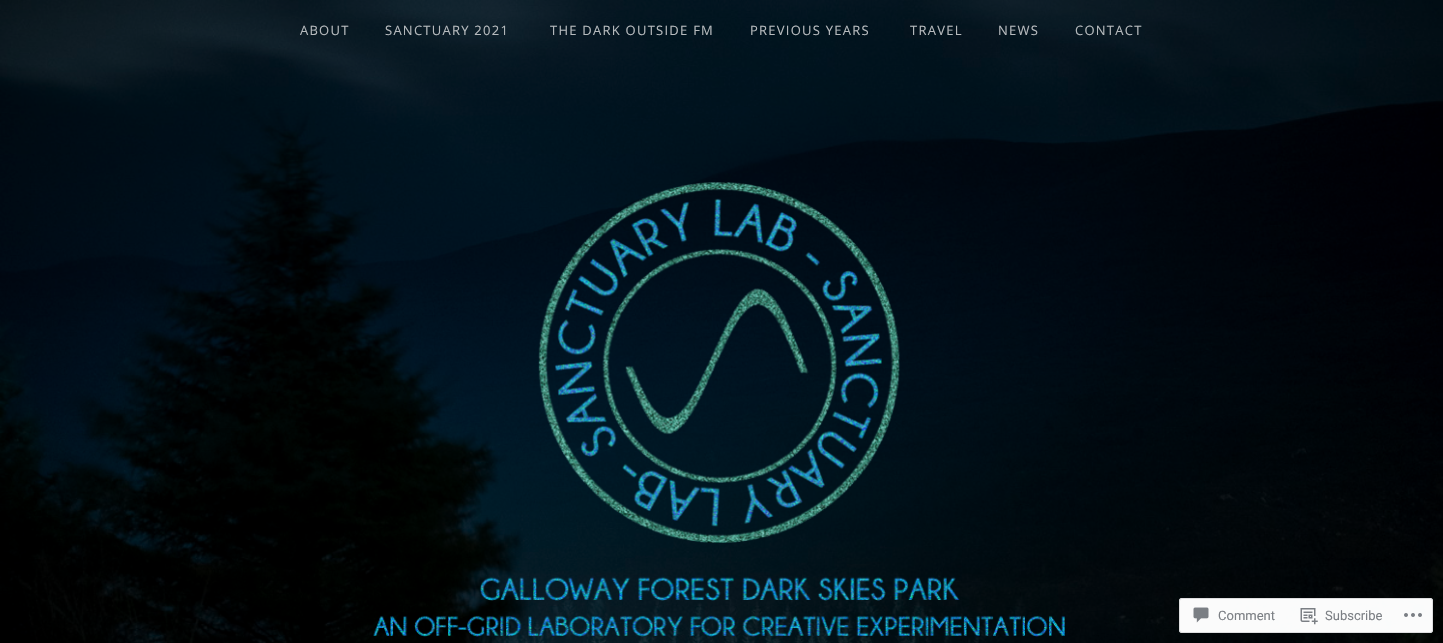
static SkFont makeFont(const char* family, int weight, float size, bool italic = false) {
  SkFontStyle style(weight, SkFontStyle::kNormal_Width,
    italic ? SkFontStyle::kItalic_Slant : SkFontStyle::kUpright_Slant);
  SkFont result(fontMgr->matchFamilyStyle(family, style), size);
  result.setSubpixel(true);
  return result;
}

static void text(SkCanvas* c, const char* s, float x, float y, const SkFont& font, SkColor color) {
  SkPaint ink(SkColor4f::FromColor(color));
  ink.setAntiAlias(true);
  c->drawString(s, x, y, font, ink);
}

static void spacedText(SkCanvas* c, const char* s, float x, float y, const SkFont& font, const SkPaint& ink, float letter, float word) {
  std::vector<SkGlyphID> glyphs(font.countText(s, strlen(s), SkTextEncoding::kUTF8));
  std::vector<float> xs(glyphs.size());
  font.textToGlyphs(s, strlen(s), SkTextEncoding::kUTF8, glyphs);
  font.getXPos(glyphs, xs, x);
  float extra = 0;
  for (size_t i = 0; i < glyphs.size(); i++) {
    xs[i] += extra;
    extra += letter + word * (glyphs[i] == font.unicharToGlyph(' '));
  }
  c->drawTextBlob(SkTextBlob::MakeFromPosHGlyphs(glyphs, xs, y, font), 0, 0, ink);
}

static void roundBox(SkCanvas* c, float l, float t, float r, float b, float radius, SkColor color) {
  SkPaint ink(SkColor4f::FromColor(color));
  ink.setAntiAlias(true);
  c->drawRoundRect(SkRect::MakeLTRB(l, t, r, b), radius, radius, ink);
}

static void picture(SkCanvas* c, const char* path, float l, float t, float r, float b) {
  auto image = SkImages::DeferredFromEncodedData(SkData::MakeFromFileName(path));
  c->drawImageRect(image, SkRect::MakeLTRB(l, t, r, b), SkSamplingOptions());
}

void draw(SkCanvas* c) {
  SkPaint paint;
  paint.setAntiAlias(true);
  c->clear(0xffffffff);
  picture(c, "img_01.png", 0, 0, 1443, 643);
  SkFont face1 = makeFont("Open Sans", 400, 13);
  paint.setColor(0xffb6babd);
  spacedText(c, "ABOUT", 300, 35, face1, paint, 1.25f, 0);
  spacedText(c, "SANCTUARY 2021", 385, 35, face1, paint, 1.25f, 0);
  spacedText(c, "THE DARK OUTSIDE FM", 550, 35, face1, paint, 1.25f, 0);
  spacedText(c, "PREVIOUS YEARS", 750, 35, face1, paint, 1.25f, 0);
  spacedText(c, "TRAVEL", 910, 35, face1, paint, 1.25f, 0);
  spacedText(c, "NEWS", 998, 35, face1, paint, 1.25f, 0);
  spacedText(c, "CONTACT", 1075, 35, face1, paint, 1.25f, 0);
  picture(c, "img_02.png", 373, 182, 1065, 637);
  roundBox(c, 1179, 598, 1433, 633, 3, 0xfaffffff);
  paint.setStyle(SkPaint::kStroke_Style);
  paint.setStrokeWidth(1);
  paint.setColor(0xfadcdcde);
  c->drawRoundRect(SkRect::MakeLTRB(1179.5f, 598.5f, 1432.5f, 632.5f), 2.5f, 2.5f, paint);
  picture(c, "img_03.png", 1193, 607, 1209, 623);
  SkFont face2 = makeFont("Roboto", 400, 13);
  text(c, "Comment", 1218, 620, face2, 0xff7b7f84);
  picture(c, "img_04.png", 1300, 608, 1318, 625);
  text(c, "Subscribe", 1325, 620, face2, 0xff7b7f84);
  picture(c, "img_05.png", 1404, 613, 1422, 617);
}
